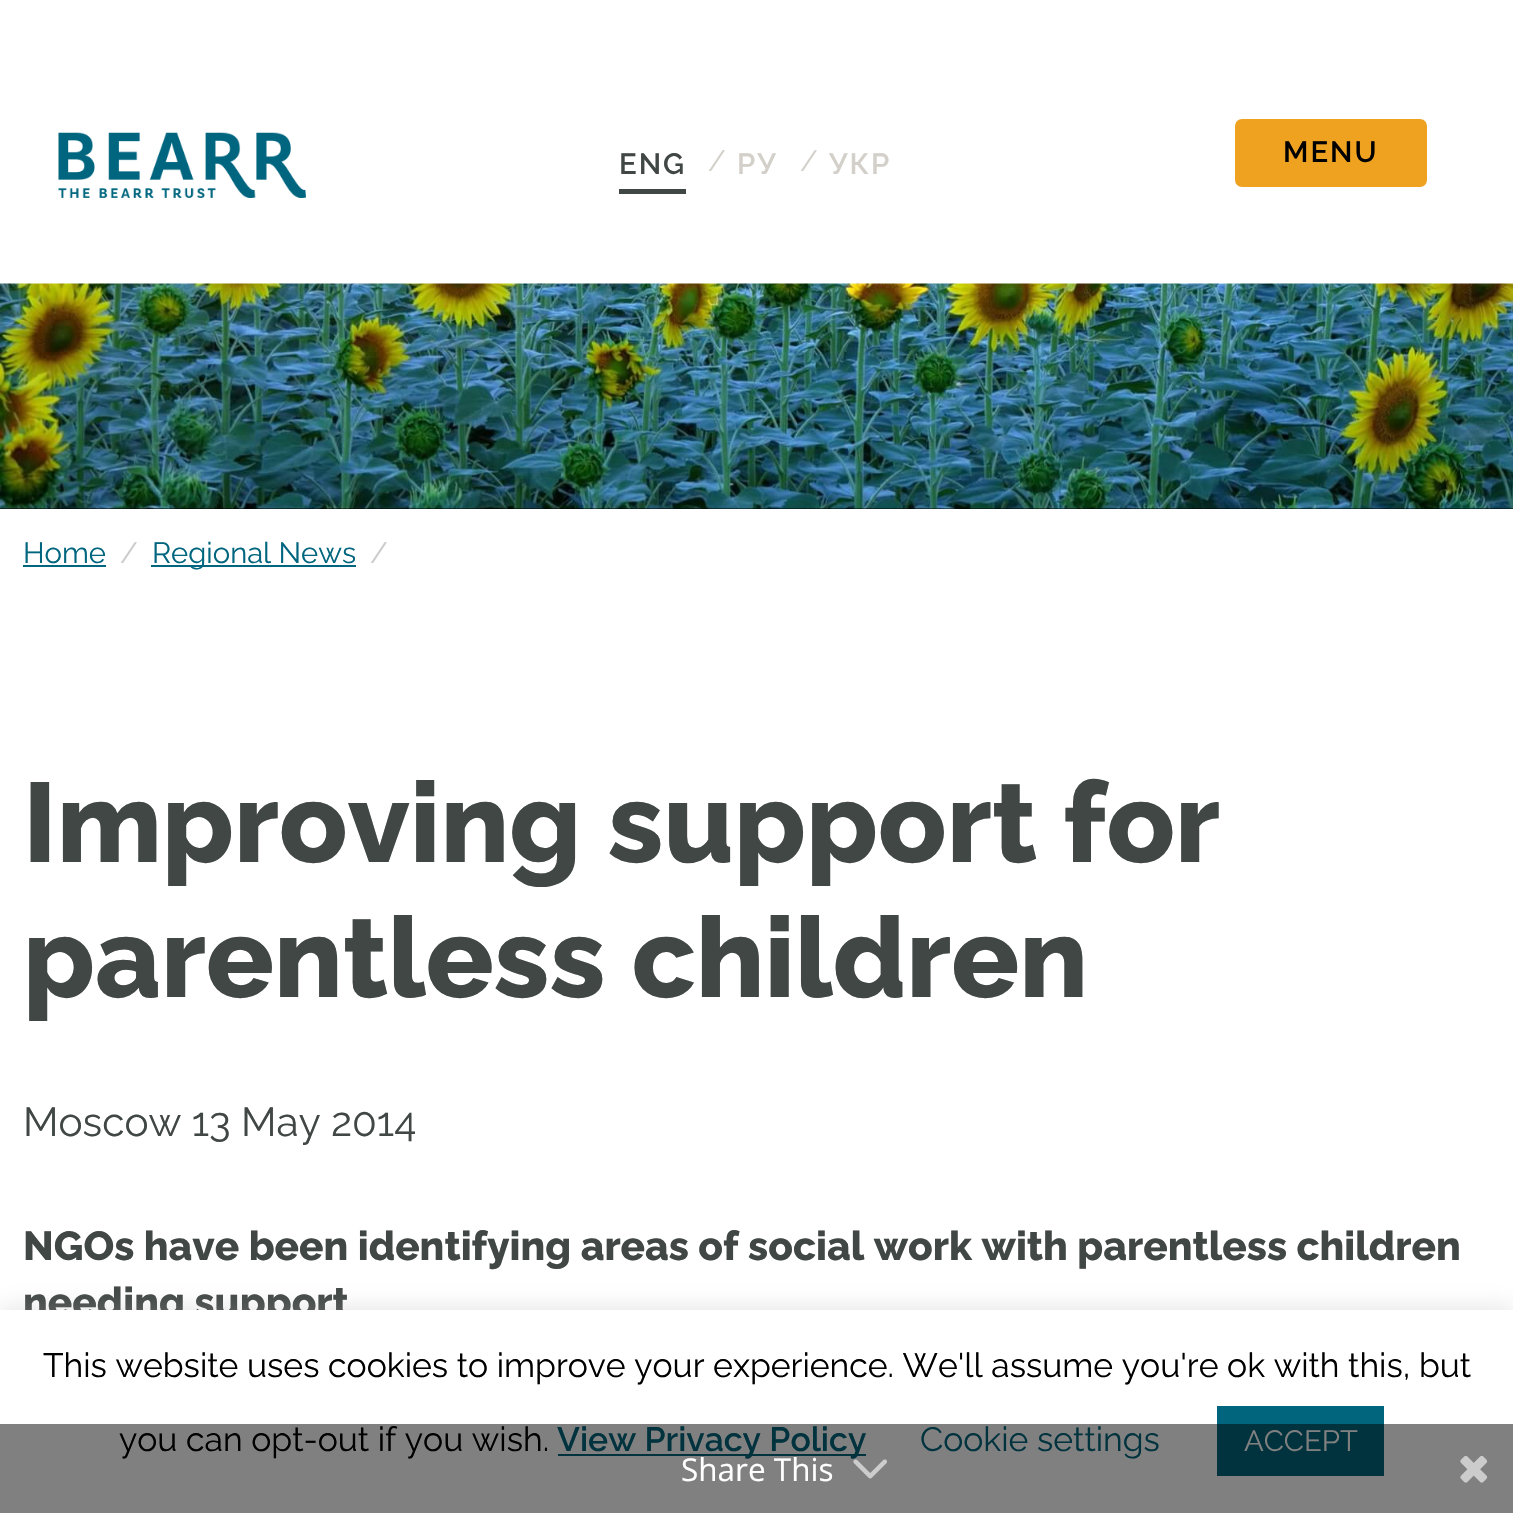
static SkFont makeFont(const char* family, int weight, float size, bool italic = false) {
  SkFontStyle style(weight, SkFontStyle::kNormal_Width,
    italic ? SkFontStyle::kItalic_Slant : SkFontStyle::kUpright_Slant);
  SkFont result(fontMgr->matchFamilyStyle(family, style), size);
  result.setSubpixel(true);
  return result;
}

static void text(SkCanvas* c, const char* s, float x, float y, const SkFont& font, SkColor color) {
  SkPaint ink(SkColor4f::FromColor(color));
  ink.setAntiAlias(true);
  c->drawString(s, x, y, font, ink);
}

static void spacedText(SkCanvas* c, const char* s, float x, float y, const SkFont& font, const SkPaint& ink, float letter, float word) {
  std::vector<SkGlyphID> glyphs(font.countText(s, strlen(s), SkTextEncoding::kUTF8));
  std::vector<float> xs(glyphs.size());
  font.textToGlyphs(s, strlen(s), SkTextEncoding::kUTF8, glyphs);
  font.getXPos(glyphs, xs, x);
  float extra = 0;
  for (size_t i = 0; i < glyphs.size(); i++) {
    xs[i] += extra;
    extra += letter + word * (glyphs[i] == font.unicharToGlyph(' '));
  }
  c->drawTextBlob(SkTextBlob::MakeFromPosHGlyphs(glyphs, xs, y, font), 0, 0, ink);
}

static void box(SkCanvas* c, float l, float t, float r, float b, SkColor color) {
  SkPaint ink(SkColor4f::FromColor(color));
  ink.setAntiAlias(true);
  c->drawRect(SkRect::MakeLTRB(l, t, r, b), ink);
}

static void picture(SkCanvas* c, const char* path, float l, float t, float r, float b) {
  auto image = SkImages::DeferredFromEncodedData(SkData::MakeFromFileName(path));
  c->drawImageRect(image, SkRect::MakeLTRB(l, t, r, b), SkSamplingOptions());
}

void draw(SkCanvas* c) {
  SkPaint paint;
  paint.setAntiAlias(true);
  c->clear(0xffffffff);
  picture(c, "img_01.png", 58, 132, 306, 198);
  SkFont face1 = makeFont("Raleway", 600, 29.25f);
  paint.setColor(0xff414745);
  spacedText(c, "ENG", 619, 174, face1, paint, 2, 0);
  box(c, 619, 189, 686, 194, 0xff414745);
  SkFont face2 = makeFont("Raleway", 400, 29.25f);
  text(c, "/", 708, 171, face2, 0xffd3cfc9);
  paint.setColor(0xffd3cfc9);
  spacedText(c, "PУ", 737, 174, face1, paint, 2, 0);
  text(c, "/", 800, 171, face2, 0xffd3cfc9);
  spacedText(c, "УКР", 829, 174, face1, paint, 2, 0);
  paint.setColor(0xffefa21f);
  c->drawRoundRect(SkRect::MakeLTRB(1236, 120, 1426, 186), 6, 6, paint);
  paint.setStyle(SkPaint::kStroke_Style);
  paint.setStrokeWidth(2);
  c->drawRoundRect(SkRect::MakeLTRB(1236, 120, 1426, 186), 6, 6, paint);
  paint.setStyle(SkPaint::kFill_Style);
  paint.setColor(0xff000000);
  spacedText(c, "MENU", 1283, 162, face1, paint, 2, 0);
  box(c, 0, 508, 1513, 509, 0xff000000);
  picture(c, "img_02.png", 0, 283, 1513, 509);
  text(c, "Home", 23, 563, face2, 0xff00657e);
  box(c, 23, 565, 106, 567, 0xff00657e);
  text(c, "/", 120, 563, face2, 0xffcccccc);
  box(c, 151, 565, 356, 567, 0xff00657e);
  text(c, "Regional News", 152, 563, face2, 0xff00657e);
  text(c, "/", 370, 563, face2, 0xffcccccc);
  SkFont face3 = makeFont("Raleway", 800, 112.5f);
  text(c, "Improving support for", 23, 862, face3, 0xff414745);
  text(c, "parentless children", 23, 997, face3, 0xff414745);
  SkFont face4 = makeFont("Raleway", 400, 40.5f);
  text(c, "Moscow 13 May 2014", 23, 1136, face4, 0xff414745);
  SkFont face5 = makeFont("Raleway", 800, 40.5f);
  text(c, "NGOs have been identifying areas of social work with parentless children", 23, 1260, face5, 0xff414745);
  text(c, "needing support", 23, 1316, face5, 0xff414745);
  paint.setColor(0x4dacabab);
  paint.setMaskFilter(SkMaskFilter::MakeBlur(kNormal_SkBlurStyle, 11));
  c->drawRect(SkRect::MakeLTRB(0, 1307, 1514, 1512), paint);
  paint.setMaskFilter(nullptr);
  box(c, 0, 1310, 1513, 1424, 0xffffffff);
  box(c, 0, 1424, 1513, 1513, 0xff808080);
  SkFont face6 = makeFont("Raleway", 400, 33.75f);
  text(c, "This website uses cookies to improve your experience. We'll assume you're ok with this, but", 43, 1377, face6, 0xff000000);
  text(c, "you can opt-out if you wish.", 119, 1451, face6, 0xff000000);
  box(c, 558, 1454, 866, 1456, 0xff01333f);
  SkFont face7 = makeFont("Raleway", 600, 33.75f);
  text(c, "View Privacy Policy", 557, 1451, face7, 0xff01333f);
  text(c, "Cookie settings", 920, 1451, face6, 0xff01333f);
  box(c, 1217, 1406, 1384, 1424, 0xff02657e);
  box(c, 1217, 1424, 1384, 1476, 0xff01333f);
  text(c, "ACCEPT", 1244, 1451, face2, 0xff808080);
  SkFont face8 = makeFont("Open Sans", 400, 31.5f);
  text(c, "Share This", 681, 1481, face8, 0xffffffff);
  picture(c, "img_03.png", 853, 1459, 887, 1479);
  picture(c, "img_04.png", 1460, 1455, 1488, 1483);
}
